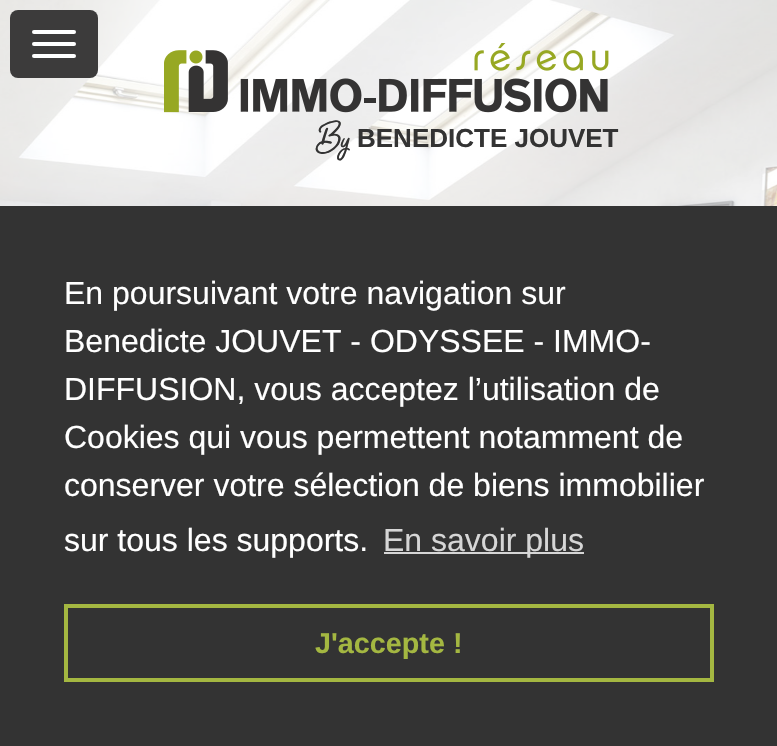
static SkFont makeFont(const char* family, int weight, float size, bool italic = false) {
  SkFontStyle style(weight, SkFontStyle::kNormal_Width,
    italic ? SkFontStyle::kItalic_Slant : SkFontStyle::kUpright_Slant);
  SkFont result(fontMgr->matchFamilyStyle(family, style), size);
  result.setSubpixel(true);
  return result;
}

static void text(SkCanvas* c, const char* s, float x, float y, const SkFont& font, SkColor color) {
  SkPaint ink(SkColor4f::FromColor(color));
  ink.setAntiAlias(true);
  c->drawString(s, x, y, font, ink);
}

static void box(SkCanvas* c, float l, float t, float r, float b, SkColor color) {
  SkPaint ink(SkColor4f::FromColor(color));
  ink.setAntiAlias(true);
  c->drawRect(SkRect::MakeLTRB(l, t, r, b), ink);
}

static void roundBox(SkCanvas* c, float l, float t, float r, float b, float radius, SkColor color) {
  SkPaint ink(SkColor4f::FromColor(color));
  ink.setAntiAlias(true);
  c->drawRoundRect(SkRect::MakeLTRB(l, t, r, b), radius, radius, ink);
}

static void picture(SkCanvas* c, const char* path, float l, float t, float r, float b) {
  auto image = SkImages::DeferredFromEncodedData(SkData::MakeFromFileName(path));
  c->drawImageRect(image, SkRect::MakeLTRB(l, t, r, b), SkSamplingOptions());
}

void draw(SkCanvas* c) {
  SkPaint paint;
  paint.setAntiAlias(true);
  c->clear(0xffffffff);
  picture(c, "img_01.png", 0, 0, 777, 206);
  box(c, 0, 0, 777, 206, 0xa6ffffff);
  roundBox(c, 10, 10, 98, 78, 8, 0xff3c3b3b);
  roundBox(c, 32, 30, 76, 34, 2, 0xffffffff);
  roundBox(c, 32, 42, 76, 46, 2, 0xffffffff);
  roundBox(c, 32, 54, 76, 58, 2, 0xffffffff);
  picture(c, "img_02.png", 164, 43, 609, 113);
  SkFont face1 = makeFont("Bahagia", 400, 40);
  text(c, "By", 315, 147, face1, 0xff333333);
  SkFont face2 = makeFont("Liberation Sans", 700, 26);
  text(c, "BENEDICTE JOUVET", 357, 147, face2, 0xff333333);
  box(c, 0, 206, 777, 746, 0xff333333);
  SkFont face3 = makeFont("Liberation Sans", 400, 32);
  text(c, "En poursuivant votre navigation sur", 64, 304, face3, 0xffffffff);
  text(c, "Benedicte JOUVET - ODYSSEE - IMMO-", 64, 352, face3, 0xffffffff);
  text(c, "DIFFUSION, vous acceptez l’utilisation de", 64, 400, face3, 0xffffffff);
  text(c, "Cookies qui vous permettent notamment de", 64, 448, face3, 0xffffffff);
  text(c, "conserver votre sélection de biens immobilier", 64, 496, face3, 0xffffffff);
  text(c, "sur tous les supports.", 64, 551, face3, 0xffffffff);
  box(c, 384, 552, 584, 554, 0xffd6d6d6);
  text(c, "En savoir plus", 383, 551, face3, 0xffd6d6d6);
  paint.setStyle(SkPaint::kStroke_Style);
  paint.setStrokeWidth(4);
  paint.setColor(0xffa4b741);
  c->drawRect(SkRect::MakeLTRB(66, 606, 712, 680), paint);
  SkFont face4 = makeFont("Liberation Sans", 700, 28.75f);
  text(c, "J'accepte !", 315, 653, face4, 0xffa4b741);
}
